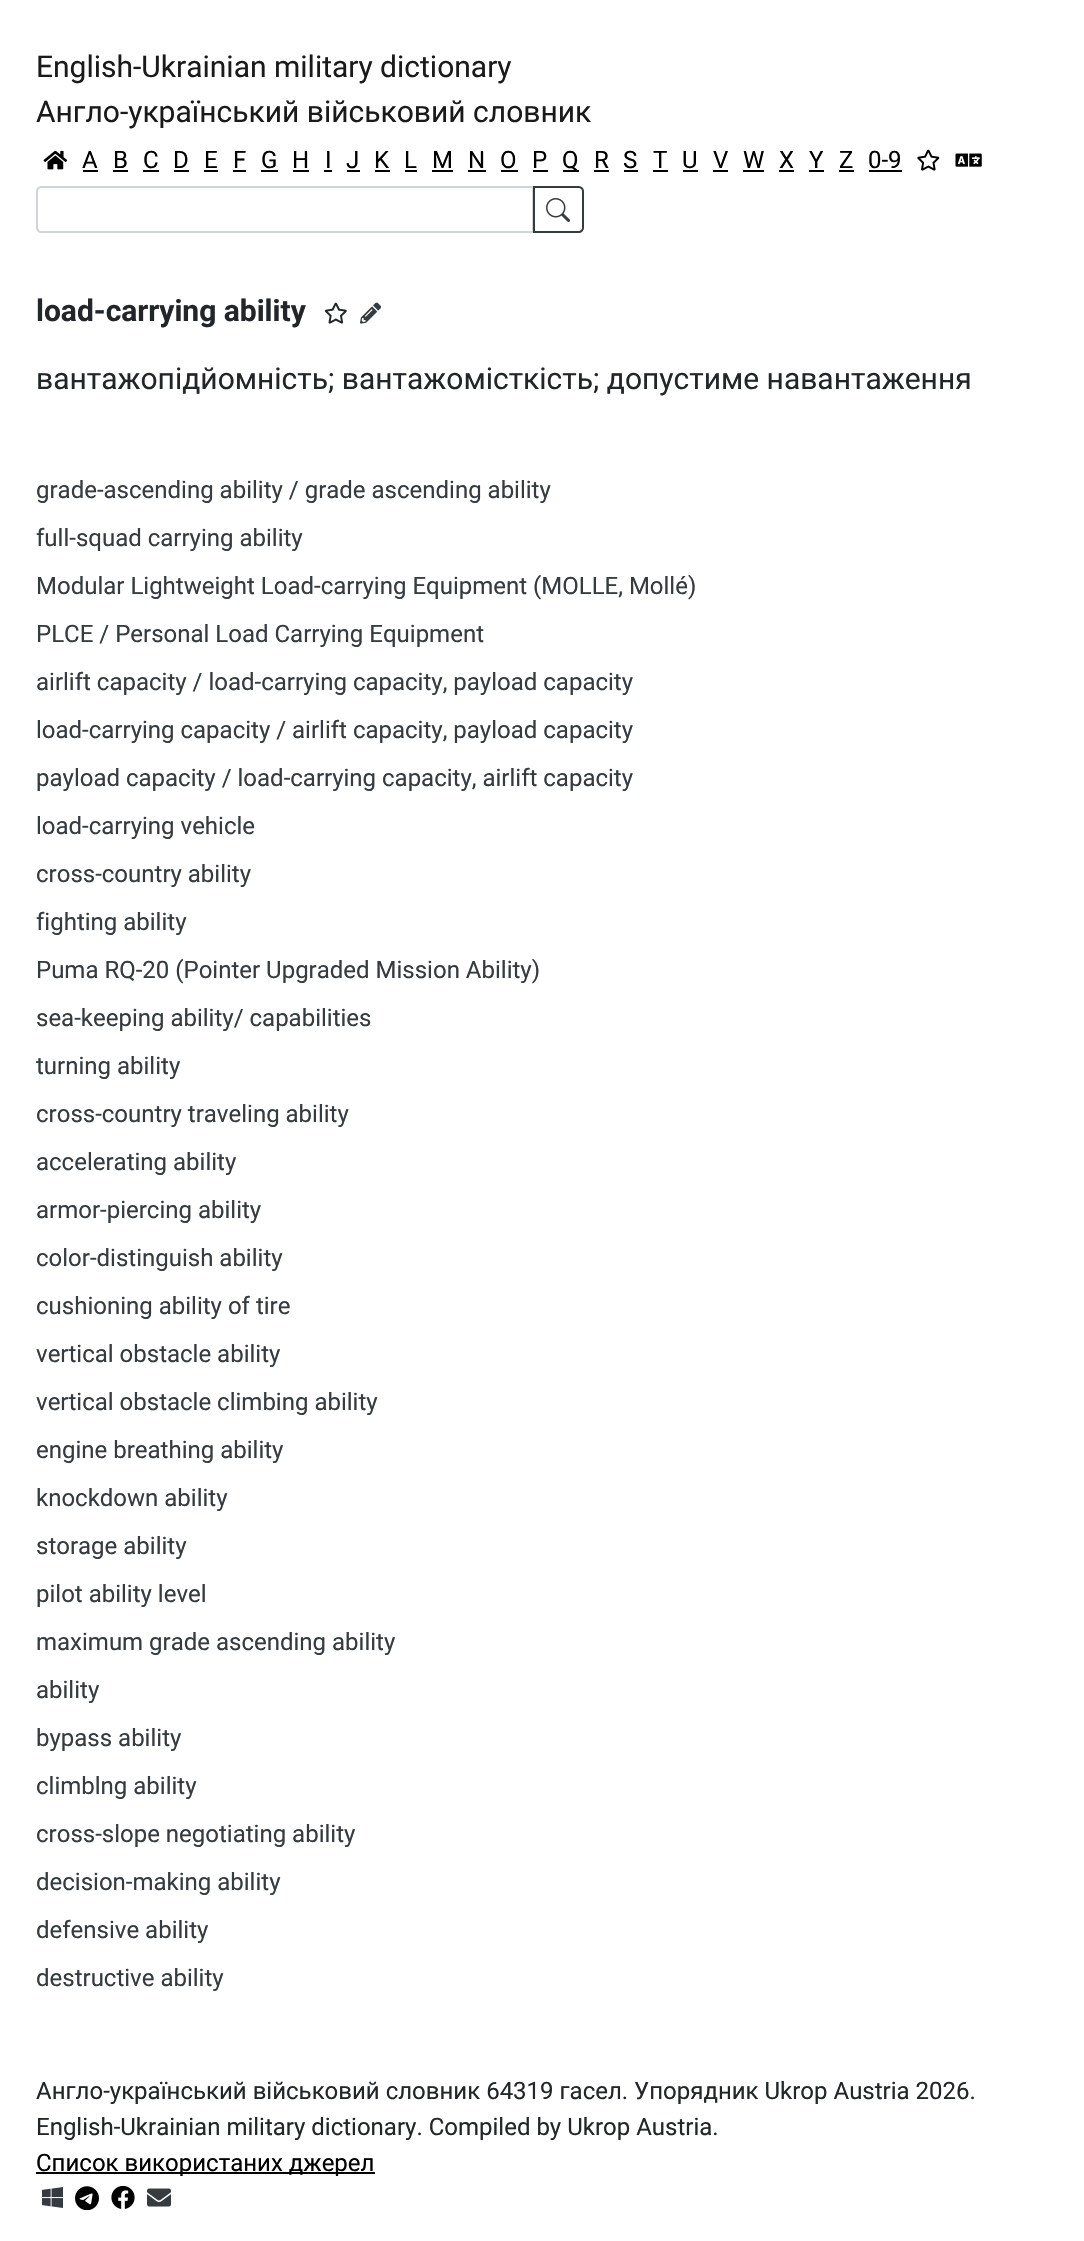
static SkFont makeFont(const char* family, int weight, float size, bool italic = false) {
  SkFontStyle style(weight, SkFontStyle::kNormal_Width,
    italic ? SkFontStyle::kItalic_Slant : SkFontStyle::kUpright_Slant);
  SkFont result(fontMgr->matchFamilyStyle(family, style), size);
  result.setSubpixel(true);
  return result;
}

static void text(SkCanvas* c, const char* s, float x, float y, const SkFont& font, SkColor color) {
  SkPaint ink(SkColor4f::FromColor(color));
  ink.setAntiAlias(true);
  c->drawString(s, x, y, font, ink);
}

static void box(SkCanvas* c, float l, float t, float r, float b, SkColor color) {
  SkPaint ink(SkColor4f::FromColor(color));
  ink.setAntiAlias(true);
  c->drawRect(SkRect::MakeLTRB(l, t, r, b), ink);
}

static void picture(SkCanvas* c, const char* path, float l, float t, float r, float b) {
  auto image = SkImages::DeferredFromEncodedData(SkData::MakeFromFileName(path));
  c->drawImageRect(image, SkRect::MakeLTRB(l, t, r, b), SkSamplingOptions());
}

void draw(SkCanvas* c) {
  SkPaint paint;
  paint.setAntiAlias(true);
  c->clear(0xffffffff);
  SkFont face1 = makeFont("Roboto", 400, 30);
  text(c, "English-Ukrainian military dictionary", 36, 77, face1, 0xff1a1a1a);
  text(c, "Англо-український військовий словник", 36, 122, face1, 0xff1a1a1a);
  picture(c, "img_01.png", 43, 150, 68, 170);
  SkFont face2 = makeFont("Roboto", 400, 24);
  text(c, "A", 82, 168, face2, 0xff000000);
  box(c, 83, 170, 98, 172, 0xff000000);
  text(c, "B", 113, 168, face2, 0xff000000);
  box(c, 113, 170, 128, 172, 0xff000000);
  text(c, "C", 143, 168, face2, 0xff000000);
  box(c, 143, 170, 159, 172, 0xff000000);
  text(c, "D", 173, 168, face2, 0xff000000);
  box(c, 174, 170, 189, 172, 0xff000000);
  text(c, "E", 204, 168, face2, 0xff000000);
  box(c, 204, 170, 218, 172, 0xff000000);
  text(c, "F", 233, 168, face2, 0xff000000);
  box(c, 233, 170, 246, 172, 0xff000000);
  text(c, "G", 261, 168, face2, 0xff000000);
  box(c, 261, 170, 278, 172, 0xff000000);
  text(c, "H", 292, 168, face2, 0xff000000);
  box(c, 293, 170, 309, 172, 0xff000000);
  text(c, "I", 325, 168, face2, 0xff000000);
  box(c, 324, 170, 332, 172, 0xff000000);
  text(c, "J", 346, 168, face2, 0xff000000);
  box(c, 347, 170, 360, 172, 0xff000000);
  text(c, "K", 374, 168, face2, 0xff000000);
  box(c, 375, 170, 390, 172, 0xff000000);
  text(c, "L", 404, 168, face2, 0xff000000);
  box(c, 405, 170, 417, 172, 0xff000000);
  text(c, "M", 432, 168, face2, 0xff000000);
  box(c, 432, 170, 453, 172, 0xff000000);
  text(c, "N", 468, 168, face2, 0xff000000);
  box(c, 468, 170, 486, 172, 0xff000000);
  text(c, "O", 500, 168, face2, 0xff000000);
  box(c, 501, 170, 518, 172, 0xff000000);
  text(c, "P", 532, 168, face2, 0xff000000);
  box(c, 533, 170, 548, 172, 0xff000000);
  box(c, 563, 170, 579, 172, 0xff000000);
  text(c, "Q", 562, 168, face2, 0xff000000);
  text(c, "R", 594, 168, face2, 0xff000000);
  box(c, 594, 170, 609, 172, 0xff000000);
  text(c, "S", 623, 168, face2, 0xff000000);
  box(c, 624, 170, 638, 172, 0xff000000);
  text(c, "T", 653, 168, face2, 0xff000000);
  box(c, 653, 170, 668, 172, 0xff000000);
  text(c, "U", 682, 168, face2, 0xff000000);
  box(c, 683, 170, 698, 172, 0xff000000);
  text(c, "V", 713, 168, face2, 0xff000000);
  box(c, 713, 170, 728, 172, 0xff000000);
  text(c, "W", 743, 168, face2, 0xff000000);
  box(c, 743, 170, 764, 172, 0xff000000);
  text(c, "X", 779, 168, face2, 0xff000000);
  box(c, 779, 170, 794, 172, 0xff000000);
  text(c, "Y", 809, 168, face2, 0xff000000);
  box(c, 809, 170, 824, 172, 0xff000000);
  text(c, "Z", 839, 168, face2, 0xff000000);
  box(c, 839, 170, 854, 172, 0xff000000);
  text(c, "0-9", 868, 168, face2, 0xff000000);
  box(c, 869, 170, 902, 172, 0xff000000);
  picture(c, "img_02.png", 917, 149, 940, 171);
  picture(c, "img_03.png", 955, 153, 982, 167);
  paint.setStyle(SkPaint::kStroke_Style);
  paint.setStrokeWidth(2);
  paint.setColor(0xffced4da);
  c->drawPath(SkPathBuilder().moveTo(41, 187).lineTo(533, 187).lineTo(533, 232).lineTo(41, 232).cubicTo(39, 232, 37, 230, 37, 228).lineTo(37, 191).cubicTo(37, 189, 39, 187, 41, 187).close().detach(), paint);
  paint.setColor(0xff353b41);
  c->drawPath(SkPathBuilder().moveTo(534, 187).lineTo(579, 187).cubicTo(581, 187, 583, 189, 583, 191).lineTo(583, 228).cubicTo(583, 230, 581, 232, 579, 232).lineTo(534, 232).close().detach(), paint);
  picture(c, "img_04.png", 546, 198, 570, 222);
  SkFont face3 = makeFont("Roboto", 700, 30);
  text(c, "load-carrying ability", 36, 321, face3, 0xff22262a);
  picture(c, "img_05.png", 324, 302, 347, 324);
  picture(c, "img_06.png", 360, 302, 381, 324);
  text(c, "вантажопідйомність; вантажомісткість; допустиме навантаження", 36, 389, face1, 0xff22262a);
  text(c, "grade-ascending ability / grade ascending ability", 36, 498, face2, 0xff353b41);
  text(c, "full-squad carrying ability", 36, 546, face2, 0xff353b41);
  text(c, "Modular Lightweight Load-carrying Equipment (MOLLE, Mollé)", 36, 594, face2, 0xff353b41);
  text(c, "PLCE / Personal Load Carrying Equipment", 36, 642, face2, 0xff353b41);
  text(c, "airlift capacity / load-carrying capacity, payload capacity", 36, 690, face2, 0xff353b41);
  text(c, "load-carrying capacity / airlift capacity, payload capacity", 36, 738, face2, 0xff353b41);
  text(c, "payload capacity / load-carrying capacity, airlift capacity", 36, 786, face2, 0xff353b41);
  text(c, "load-carrying vehicle", 36, 834, face2, 0xff353b41);
  text(c, "cross-country ability", 36, 882, face2, 0xff353b41);
  text(c, "fighting ability", 36, 930, face2, 0xff353b41);
  text(c, "Puma RQ-20 (Pointer Upgraded Mission Ability)", 36, 978, face2, 0xff353b41);
  text(c, "sea-keeping ability/ capabilities", 36, 1026, face2, 0xff353b41);
  text(c, "turning ability", 36, 1074, face2, 0xff353b41);
  text(c, "cross-country traveling ability", 36, 1122, face2, 0xff353b41);
  text(c, "accelerating ability", 36, 1170, face2, 0xff353b41);
  text(c, "armor-piercing ability", 36, 1218, face2, 0xff353b41);
  text(c, "color-distinguish ability", 36, 1266, face2, 0xff353b41);
  text(c, "cushioning ability of tire", 36, 1314, face2, 0xff353b41);
  text(c, "vertical obstacle ability", 36, 1362, face2, 0xff353b41);
  text(c, "vertical obstacle climbing ability", 36, 1410, face2, 0xff353b41);
  text(c, "engine breathing ability", 36, 1458, face2, 0xff353b41);
  text(c, "knockdown ability", 36, 1506, face2, 0xff353b41);
  text(c, "storage ability", 36, 1554, face2, 0xff353b41);
  text(c, "pilot ability level", 36, 1602, face2, 0xff353b41);
  text(c, "maximum grade ascending ability", 36, 1650, face2, 0xff353b41);
  text(c, "ability", 36, 1698, face2, 0xff353b41);
  text(c, "bypass ability", 36, 1746, face2, 0xff353b41);
  text(c, "climblng ability", 36, 1794, face2, 0xff353b41);
  text(c, "cross-slope negotiating ability", 36, 1842, face2, 0xff353b41);
  text(c, "decision-making ability", 36, 1890, face2, 0xff353b41);
  text(c, "defensive ability", 36, 1938, face2, 0xff353b41);
  text(c, "destructive ability", 36, 1986, face2, 0xff353b41);
  text(c, "Англо-український військовий словник 64319 гасел. Упорядник Ukrop Austria 2026.", 36, 2099, face2, 0xff22262a);
  text(c, "English-Ukrainian military dictionary. Compiled by Ukrop Austria.", 36, 2135, face2, 0xff22262a);
  box(c, 36, 2172, 375, 2174, 0xff000000);
  text(c, "Список використаних джерел", 36, 2171, face2, 0xff000000);
  picture(c, "img_07.png", 42, 2187, 63, 2208);
  picture(c, "img_08.png", 75, 2186, 99, 2210);
  picture(c, "img_09.png", 111, 2186, 135, 2209);
  picture(c, "img_10.png", 147, 2188, 171, 2207);
}
